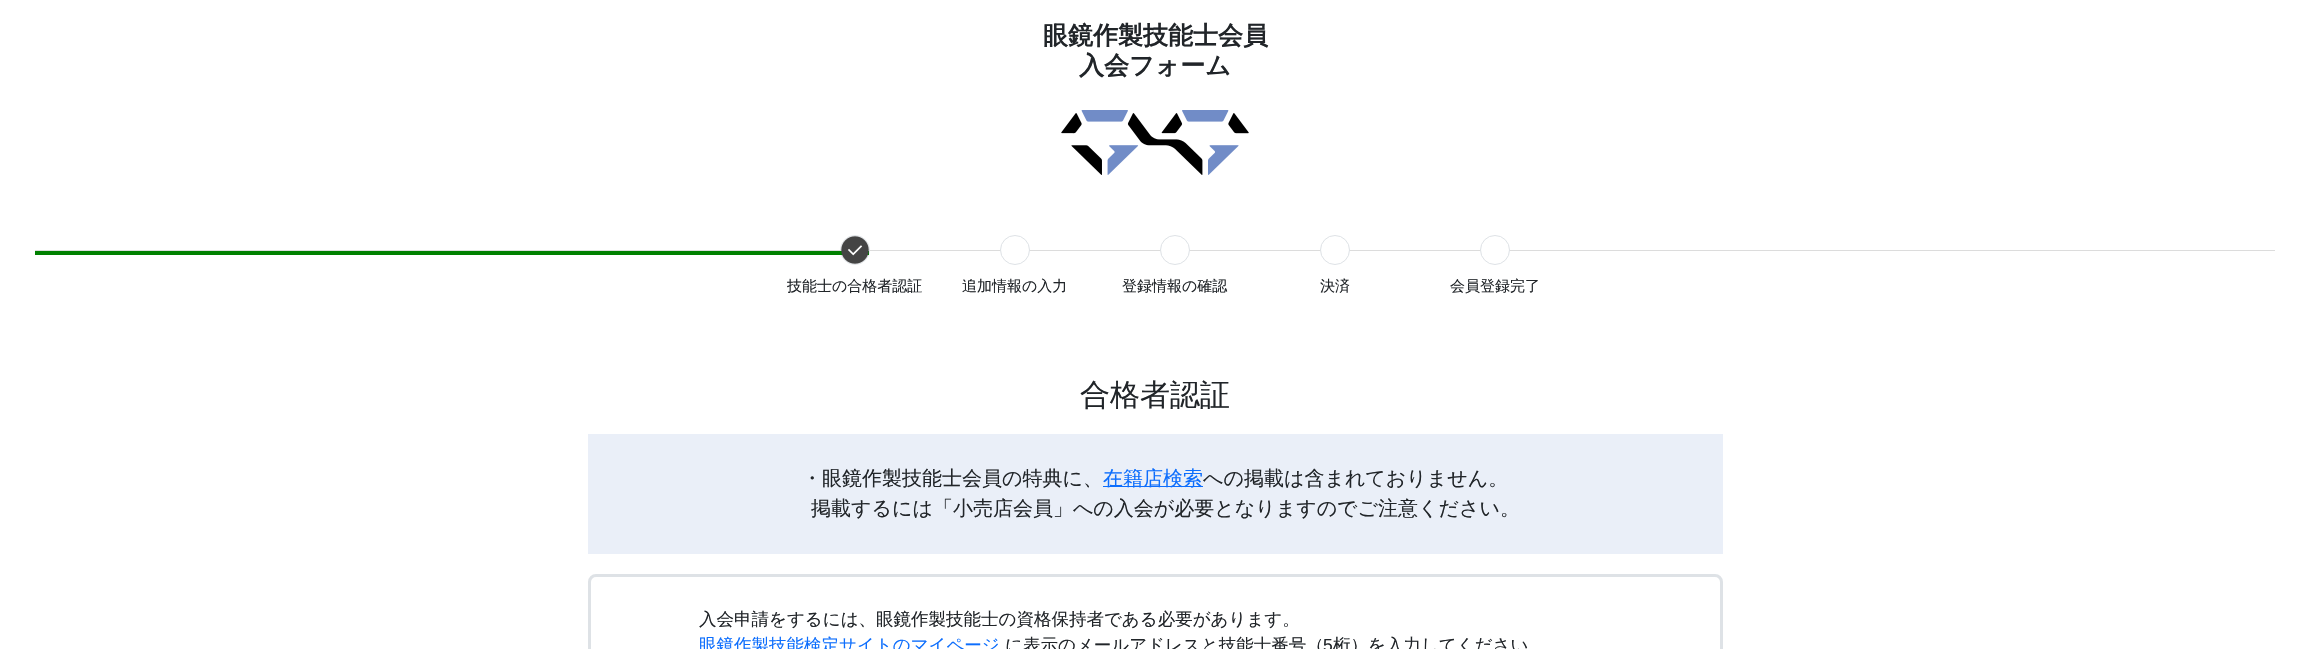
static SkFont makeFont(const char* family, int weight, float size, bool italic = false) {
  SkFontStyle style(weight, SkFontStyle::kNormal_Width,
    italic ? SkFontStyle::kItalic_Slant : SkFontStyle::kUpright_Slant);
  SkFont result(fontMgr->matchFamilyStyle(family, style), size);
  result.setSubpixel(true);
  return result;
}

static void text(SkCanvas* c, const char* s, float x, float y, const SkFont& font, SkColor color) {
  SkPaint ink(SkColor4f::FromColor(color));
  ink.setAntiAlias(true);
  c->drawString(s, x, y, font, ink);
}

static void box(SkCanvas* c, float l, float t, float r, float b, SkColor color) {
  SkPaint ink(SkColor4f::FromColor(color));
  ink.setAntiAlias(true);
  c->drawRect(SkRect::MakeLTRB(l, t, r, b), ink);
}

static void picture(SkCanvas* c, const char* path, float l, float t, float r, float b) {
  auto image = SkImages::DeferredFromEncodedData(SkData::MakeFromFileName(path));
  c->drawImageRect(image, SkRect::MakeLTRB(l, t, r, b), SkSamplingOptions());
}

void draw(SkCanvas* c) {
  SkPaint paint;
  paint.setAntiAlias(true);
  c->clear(0xffffffff);
  SkFont face1 = makeFont("WenQuanYi Zen Hei", 700, 25);
  text(c, "眼鏡作製技能士会員", 1043, 44, face1, 0xff212529);
  text(c, "入会フォーム", 1079, 74, face1, 0xff212529);
  picture(c, "img_01.png", 1061, 110, 1249, 175);
  box(c, 35, 250, 2275, 251, 0xffdcdcdc);
  paint.setColor(0xffffffff);
  c->drawCircle(855, 250, 14.5f, paint);
  paint.setStyle(SkPaint::kStroke_Style);
  paint.setStrokeWidth(1);
  paint.setColor(0xffdee2e6);
  c->drawCircle(855, 250, 14.5f, paint);
  box(c, 35, 251, 869, 255, 0xff008000);
  picture(c, "img_02.png", 841, 236, 869, 264);
  SkFont face2 = makeFont("WenQuanYi Zen Hei", 500, 15);
  text(c, "技能士の合格者認証", 787, 291, face2, 0xff212529);
  paint.setStyle(SkPaint::kFill_Style);
  paint.setColor(0xffffffff);
  c->drawCircle(1015, 250, 14.5f, paint);
  paint.setStyle(SkPaint::kStroke_Style);
  paint.setColor(0xffdee2e6);
  c->drawCircle(1015, 250, 14.5f, paint);
  text(c, "追加情報の入力", 962, 291, face2, 0xff212529);
  paint.setStyle(SkPaint::kFill_Style);
  paint.setColor(0xffffffff);
  c->drawCircle(1175, 250, 14.5f, paint);
  paint.setStyle(SkPaint::kStroke_Style);
  paint.setColor(0xffdee2e6);
  c->drawCircle(1175, 250, 14.5f, paint);
  text(c, "登録情報の確認", 1122, 291, face2, 0xff212529);
  paint.setStyle(SkPaint::kFill_Style);
  paint.setColor(0xffffffff);
  c->drawCircle(1335, 250, 14.5f, paint);
  paint.setStyle(SkPaint::kStroke_Style);
  paint.setColor(0xffdee2e6);
  c->drawCircle(1335, 250, 14.5f, paint);
  text(c, "決済", 1320, 291, face2, 0xff212529);
  paint.setStyle(SkPaint::kFill_Style);
  paint.setColor(0xffffffff);
  c->drawCircle(1495, 250, 14.5f, paint);
  paint.setStyle(SkPaint::kStroke_Style);
  paint.setColor(0xffdee2e6);
  c->drawCircle(1495, 250, 14.5f, paint);
  text(c, "会員登録完了", 1450, 291, face2, 0xff212529);
  SkFont face3 = makeFont("WenQuanYi Zen Hei", 500, 30);
  text(c, "合格者認証", 1080, 405, face3, 0xff212529);
  box(c, 588, 434, 1723, 554, 0xffeaeff8);
  SkFont face4 = makeFont("WenQuanYi Zen Hei", 500, 20);
  text(c, "・眼鏡作製技能士会員の特典に、", 802, 485, face4, 0xff212529);
  box(c, 1103, 486, 1203, 487, 0xff0d6efd);
  text(c, "在籍店検索", 1103, 485, face4, 0xff0d6efd);
  text(c, "への掲載は含まれておりません。", 1203, 485, face4, 0xff212529);
  text(c, "掲載するには「小売店会員」への入会が必要となりますのでご注意ください。", 811, 515, face4, 0xff212529);
  paint.setStrokeWidth(3);
  c->drawRoundRect(SkRect::MakeLTRB(589.5f, 575.5f, 1721.5f, 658.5f), 6.5f, 6.5f, paint);
  SkFont face5 = makeFont("WenQuanYi Zen Hei", 500, 17.5f);
  text(c, "入会申請をするには、眼鏡作製技能士の資格保持者である必要があります。", 699, 625, face5, 0xff212529);
  text(c, "眼鏡作製技能検定サイトのマイページ", 699, 651, face5, 0xff0d6efd);
  text(c, "に表示のメールアドレスと技能士番号（", 1005, 651, face5, 0xff212529);
  SkFont face6 = makeFont("Liberation Sans", 400, 17.5f);
  text(c, "5", 1323, 651, face6, 0xff212529);
  text(c, "桁）を入力してください", 1333, 651, face5, 0xff212529);
}
